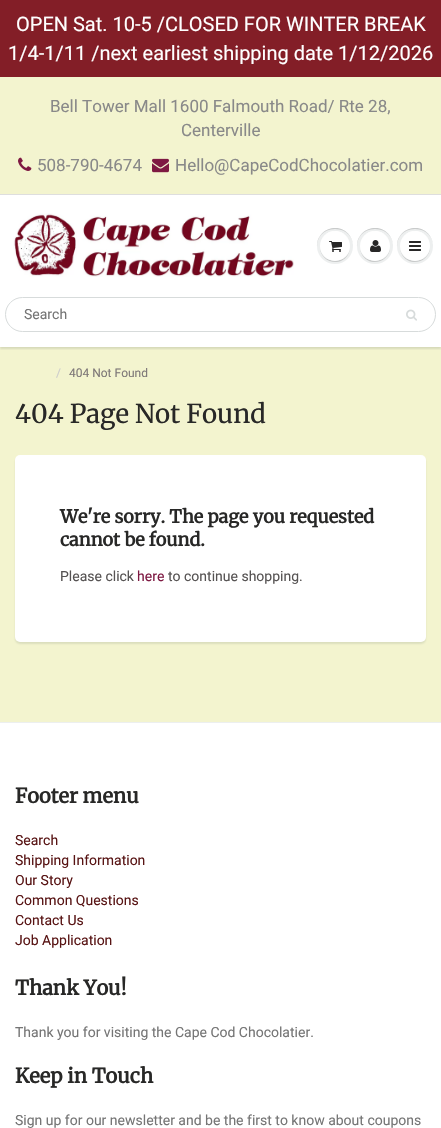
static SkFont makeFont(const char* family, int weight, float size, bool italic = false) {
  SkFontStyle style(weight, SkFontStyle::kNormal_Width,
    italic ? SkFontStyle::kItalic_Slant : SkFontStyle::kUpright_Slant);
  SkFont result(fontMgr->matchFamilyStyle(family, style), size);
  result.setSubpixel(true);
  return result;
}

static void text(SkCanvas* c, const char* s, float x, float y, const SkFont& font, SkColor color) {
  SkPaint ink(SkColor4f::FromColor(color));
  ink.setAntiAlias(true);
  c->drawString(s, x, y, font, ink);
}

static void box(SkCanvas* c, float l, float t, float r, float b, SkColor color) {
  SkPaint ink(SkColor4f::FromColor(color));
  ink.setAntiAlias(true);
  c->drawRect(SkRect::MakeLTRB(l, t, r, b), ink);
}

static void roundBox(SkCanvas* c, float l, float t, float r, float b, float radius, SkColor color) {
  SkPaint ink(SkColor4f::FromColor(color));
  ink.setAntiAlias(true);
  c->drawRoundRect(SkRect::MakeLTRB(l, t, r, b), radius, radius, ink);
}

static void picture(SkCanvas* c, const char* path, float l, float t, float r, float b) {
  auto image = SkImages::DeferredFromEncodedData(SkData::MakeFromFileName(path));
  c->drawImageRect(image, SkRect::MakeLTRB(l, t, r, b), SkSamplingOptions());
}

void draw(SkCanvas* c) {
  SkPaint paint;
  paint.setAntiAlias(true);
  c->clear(0xffffffff);
  box(c, 0, 0, 441, 77, 0xff831e27);
  SkFont face1 = makeFont("Roboto", 400, 20);
  text(c, "OPEN Sat. 10-5 /CLOSED FOR WINTER BREAK", 16, 31, face1, 0xffffffff);
  text(c, "1/4-1/11 /next earliest shipping date 1/12/2026", 8, 60, face1, 0xffffffff);
  box(c, 0, 77, 441, 194, 0xfff3f4cf);
  SkFont face2 = makeFont("Roboto", 400, 17);
  text(c, "Bell Tower Mall 1600 Falmouth Road/ Rte 28,", 50, 112, face2, 0xff898989);
  text(c, "Centerville", 181, 136, face2, 0xff898989);
  picture(c, "img_01.png", 18, 157, 32, 171);
  text(c, "508-790-4674", 37, 171, face2, 0xff898989);
  picture(c, "img_02.png", 152, 158, 169, 173);
  text(c, "Hello@CapeCodChocolatier.com", 175, 171, face2, 0xff898989);
  box(c, 0, 347, 441, 722, 0xfff3f4cf);
  c->save();
  c->clipRect(SkRect::MakeLTRB(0, 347, 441, 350));
  paint.setColor(0x1f0b191c);
  paint.setMaskFilter(SkMaskFilter::MakeBlur(kNormal_SkBlurStyle, 1));
  c->drawRect(SkRect::MakeLTRB(0, 196, 441, 349), paint);
  paint.setMaskFilter(nullptr);
  c->restore();
  box(c, 0, 194, 441, 195, 0xffdedede);
  picture(c, "img_03.png", 13, 213, 294, 277);
  paint.setColor(0xffedefef);
  c->drawCircle(335, 246, 18, paint);
  paint.setColor(0xffc9cbcb);
  c->drawPath(SkPathBuilder().moveTo(335, 229).cubicTo(347, 229, 353, 237.5f, 353, 246.5f).cubicTo(353, 243, 352, 239, 350, 236).cubicTo(340, 221, 316.5f, 228.5f, 317, 246.5f).cubicTo(317, 237.5f, 323, 229, 335, 229).close().detach(), paint);
  c->drawPath(SkPathBuilder().moveTo(320, 246.5f).cubicTo(319.5f, 261.5f, 339, 268, 347.5f, 255.5f).cubicTo(349, 253, 350, 249.5f, 350, 246.5f).cubicTo(349.5f, 265.5f, 320.5f, 265.5f, 320, 246.5f).close().detach(), paint);
  paint.setColor(0xffffffff);
  c->drawCircle(335, 246, 15, paint);
  c->drawPath(SkPathBuilder().moveTo(335, 232).cubicTo(345, 232, 350, 239, 350, 246.5f).cubicTo(350, 243.5f, 349, 240, 347.5f, 237.5f).cubicTo(339, 225, 319.5f, 231.5f, 320, 246.5f).cubicTo(320, 239, 325, 232, 335, 232).close().detach(), paint);
  picture(c, "img_04.png", 329, 241, 342, 252);
  paint.setColor(0xffedefef);
  c->drawCircle(375, 246, 18, paint);
  paint.setColor(0xffc9cbcb);
  c->drawPath(SkPathBuilder().moveTo(375, 229).cubicTo(387, 229, 393, 237.5f, 393, 246.5f).cubicTo(393, 243, 392, 239, 390, 236).cubicTo(380, 221, 356.5f, 228.5f, 357, 246.5f).cubicTo(357, 237.5f, 363, 229, 375, 229).close().detach(), paint);
  c->drawPath(SkPathBuilder().moveTo(360, 246.5f).cubicTo(360, 249.5f, 361, 253, 362.5f, 255.5f).cubicTo(371, 268, 390.5f, 261.5f, 390, 246.5f).cubicTo(389.5f, 265.5f, 360.5f, 265.5f, 360, 246.5f).close().detach(), paint);
  paint.setColor(0xffffffff);
  c->drawCircle(375, 246, 15, paint);
  c->drawPath(SkPathBuilder().moveTo(375, 232).cubicTo(385, 232, 390, 239, 390, 246.5f).cubicTo(390, 243.5f, 389, 240, 387.5f, 237.5f).cubicTo(379, 225, 359.5f, 231.5f, 360, 246.5f).cubicTo(360, 239, 365, 232, 375, 232).close().detach(), paint);
  picture(c, "img_05.png", 370, 240, 381, 252);
  paint.setColor(0xffedefef);
  c->drawCircle(415, 246, 18, paint);
  paint.setColor(0xffc9cbcb);
  c->drawPath(SkPathBuilder().moveTo(415, 229).cubicTo(427, 229, 433, 237.5f, 433, 246.5f).cubicTo(433, 243, 432, 239, 430, 236).cubicTo(420, 221, 396.5f, 228.5f, 397, 246.5f).cubicTo(397, 237.5f, 403, 229, 415, 229).close().detach(), paint);
  c->drawPath(SkPathBuilder().moveTo(400, 246.5f).cubicTo(400, 249.5f, 401, 253, 402.5f, 255.5f).cubicTo(411, 268, 430.5f, 261.5f, 430, 246.5f).cubicTo(429.5f, 265.5f, 400.5f, 265.5f, 400, 246.5f).close().detach(), paint);
  paint.setColor(0xffffffff);
  c->drawCircle(415, 246, 15, paint);
  c->drawPath(SkPathBuilder().moveTo(415, 232).cubicTo(425, 232, 430, 239, 430, 246.5f).cubicTo(430, 243.5f, 429, 240, 427.5f, 237.5f).cubicTo(419, 225, 399.5f, 231.5f, 400, 246.5f).cubicTo(400, 239, 405, 232, 415, 232).close().detach(), paint);
  picture(c, "img_06.png", 409, 241, 421, 251);
  paint.setStyle(SkPaint::kStroke_Style);
  paint.setStrokeWidth(1);
  paint.setColor(0xffd7dbdb);
  c->drawRoundRect(SkRect::MakeLTRB(5.5f, 297.5f, 435.5f, 331.5f), 17, 17, paint);
  SkFont face3 = makeFont("Roboto", 400, 14);
  text(c, "Search", 24, 319, face3, 0xff757575);
  picture(c, "img_07.png", 406, 309, 417, 321);
  SkFont face4 = makeFont("Roboto", 400, 12);
  text(c, "/", 56, 377, face4, 0xffcccccc);
  text(c, "404 Not Found", 69, 377, face4, 0xff7e7878);
  SkFont face5 = makeFont("Merriweather", 400, 26);
  text(c, "404 Page Not Found", 15, 423, face5, 0xff282827);
  paint.setStyle(SkPaint::kFill_Style);
  paint.setColor(0x1a0b191c);
  paint.setMaskFilter(SkMaskFilter::MakeBlur(kNormal_SkBlurStyle, 1));
  c->drawRoundRect(SkRect::MakeLTRB(15, 457, 426, 644), 5, 5, paint);
  paint.setMaskFilter(nullptr);
  roundBox(c, 15, 455, 426, 642, 5, 0xffffffff);
  SkFont face6 = makeFont("Merriweather", 700, 18);
  text(c, "We're sorry. The page you requested", 60, 523, face6, 0xff282827);
  text(c, "cannot be found.", 60, 546, face6, 0xff282827);
  text(c, "Please click", 60, 581, face3, 0xff565353);
  text(c, "here", 137, 581, face3, 0xff7e1942);
  text(c, "to continue shopping.", 168, 581, face3, 0xff565353);
  box(c, 0, 722, 441, 723, 0xffecefef);
  SkFont face7 = makeFont("Merriweather", 700, 20);
  text(c, "Footer menu", 15, 803, face7, 0xff282827);
  text(c, "Search", 15, 845, face3, 0xff581414);
  text(c, "Shipping Information", 15, 865, face3, 0xff581414);
  text(c, "Our Story", 15, 885, face3, 0xff581414);
  text(c, "Common Questions", 15, 905, face3, 0xff581414);
  text(c, "Contact Us", 15, 925, face3, 0xff581414);
  text(c, "Job Application", 15, 945, face3, 0xff581414);
  text(c, "Thank You!", 15, 995, face7, 0xff282827);
  text(c, "Thank you for visiting the Cape Cod Chocolatier.", 15, 1037, face3, 0xff757575);
  text(c, "Keep in Touch", 15, 1083, face7, 0xff282827);
  text(c, "Sign up for our newsletter and be the first to know about coupons", 15, 1125, face3, 0xff757575);
}
